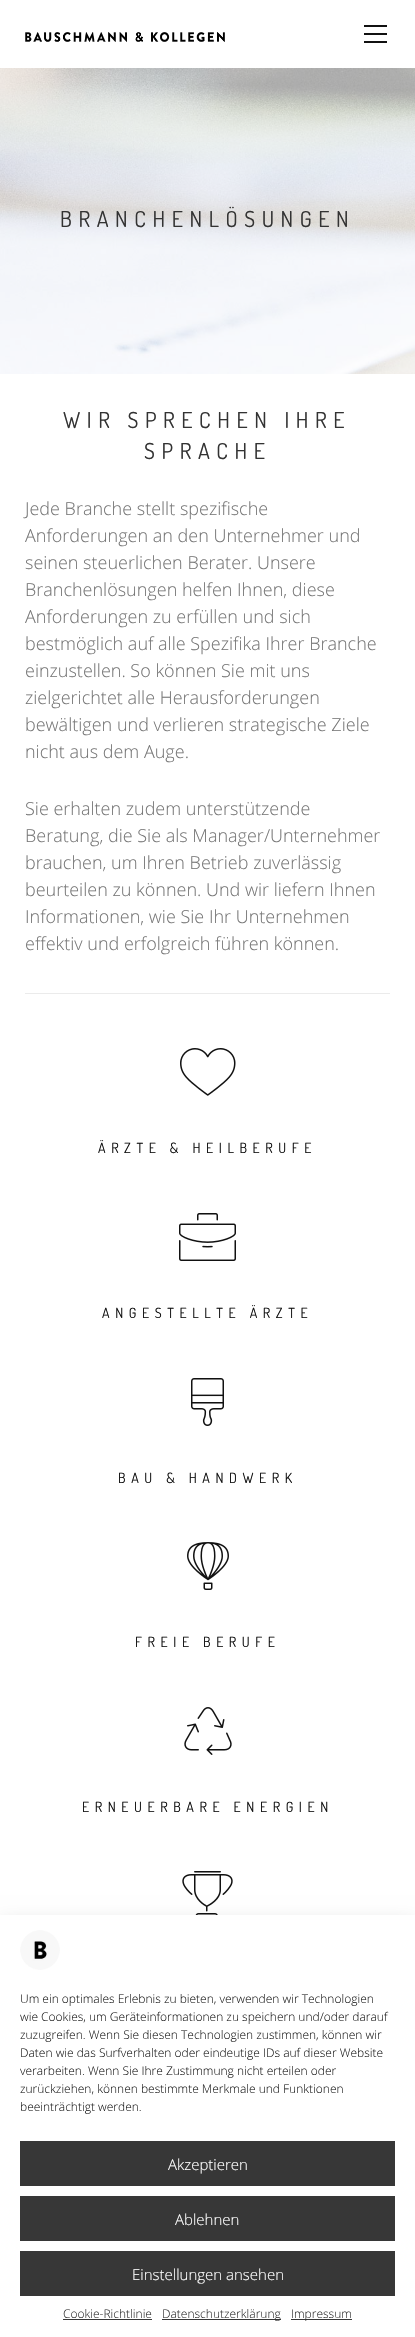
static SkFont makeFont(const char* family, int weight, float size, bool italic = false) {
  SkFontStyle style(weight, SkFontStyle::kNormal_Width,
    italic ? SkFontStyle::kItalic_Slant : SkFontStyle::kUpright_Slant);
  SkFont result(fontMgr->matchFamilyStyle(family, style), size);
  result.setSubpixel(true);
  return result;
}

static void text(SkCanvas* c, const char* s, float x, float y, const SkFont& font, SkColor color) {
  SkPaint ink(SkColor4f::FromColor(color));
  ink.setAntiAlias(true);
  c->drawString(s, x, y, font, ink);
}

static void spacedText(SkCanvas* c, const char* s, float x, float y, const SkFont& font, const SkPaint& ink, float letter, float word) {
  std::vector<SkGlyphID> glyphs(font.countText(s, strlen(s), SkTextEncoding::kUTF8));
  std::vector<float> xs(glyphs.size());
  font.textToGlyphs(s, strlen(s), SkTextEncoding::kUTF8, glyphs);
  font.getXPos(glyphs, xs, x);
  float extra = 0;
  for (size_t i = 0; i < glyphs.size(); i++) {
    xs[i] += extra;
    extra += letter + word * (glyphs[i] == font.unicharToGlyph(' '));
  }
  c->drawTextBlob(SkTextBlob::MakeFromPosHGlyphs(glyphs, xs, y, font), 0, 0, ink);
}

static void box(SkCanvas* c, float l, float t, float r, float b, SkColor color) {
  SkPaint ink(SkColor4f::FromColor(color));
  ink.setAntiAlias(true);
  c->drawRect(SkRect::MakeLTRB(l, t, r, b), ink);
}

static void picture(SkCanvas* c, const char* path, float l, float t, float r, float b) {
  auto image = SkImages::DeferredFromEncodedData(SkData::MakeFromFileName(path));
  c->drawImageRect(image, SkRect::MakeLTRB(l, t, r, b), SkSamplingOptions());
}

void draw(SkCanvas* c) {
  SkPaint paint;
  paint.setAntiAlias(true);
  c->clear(0xffffffff);
  picture(c, "img_01.png", 25, 32, 225, 42);
  box(c, 364, 33, 387, 35, 0xff111111);
  box(c, 364, 25, 387, 27, 0xff111111);
  box(c, 364, 41, 387, 43, 0xff111111);
  picture(c, "img_02.png", 0, 68, 415, 374);
  SkFont face1 = makeFont("Dosis", 400, 22);
  paint.setColor(0xff333333);
  spacedText(c, "BRANCHENLÖSUNGEN", 60, 227, face1, paint, 6.6f, 0);
  spacedText(c, "WIR SPRECHEN IHRE", 63, 428, face1, paint, 6.6f, 0);
  spacedText(c, "SPRACHE", 144, 459, face1, paint, 6.6f, 0);
  SkFont face2 = makeFont("Open Sans", 300, 18);
  text(c, "Jede Branche stellt spezifische", 25, 515, face2, 0xff777777);
  text(c, "Anforderungen an den Unternehmer und", 25, 542, face2, 0xff777777);
  text(c, "seinen steuerlichen Berater. Unsere", 25, 569, face2, 0xff777777);
  text(c, "Branchenlösungen helfen Ihnen, diese", 25, 596, face2, 0xff777777);
  text(c, "Anforderungen zu erfüllen und sich", 25, 623, face2, 0xff777777);
  text(c, "bestmöglich auf alle Spezifika Ihrer Branche", 25, 650, face2, 0xff777777);
  text(c, "einzustellen. So können Sie mit uns", 25, 677, face2, 0xff777777);
  text(c, "zielgerichtet alle Herausforderungen", 25, 704, face2, 0xff777777);
  text(c, "bewältigen und verlieren strategische Ziele", 25, 731, face2, 0xff777777);
  text(c, "nicht aus dem Auge.", 25, 758, face2, 0xff777777);
  text(c, "Sie erhalten zudem unterstützende", 25, 815, face2, 0xff777777);
  text(c, "Beratung, die Sie als Manager/Unternehmer", 25, 842, face2, 0xff777777);
  text(c, "brauchen, um Ihren Betrieb zuverlässig", 25, 869, face2, 0xff777777);
  text(c, "beurteilen zu können. Und wir liefern Ihnen", 25, 896, face2, 0xff777777);
  text(c, "Informationen, wie Sie Ihr Unternehmen", 25, 923, face2, 0xff777777);
  text(c, "effektiv und erfolgreich führen können.", 25, 950, face2, 0xff777777);
  box(c, 25, 993, 390, 994, 0xffebebeb);
  picture(c, "img_03.png", 180, 1048, 236, 1096);
  SkFont face3 = makeFont("Dosis", 400, 14);
  paint.setColor(0xff111111);
  spacedText(c, "ÄRZTE & HEILBERUFE", 98, 1153, face3, paint, 5.6f, 0);
  picture(c, "img_04.png", 179, 1213, 236, 1261);
  spacedText(c, "ANGESTELLTE ÄRZTE", 102, 1318, face3, paint, 5.6f, 0);
  picture(c, "img_05.png", 191, 1378, 224, 1426);
  spacedText(c, "BAU & HANDWERK", 118, 1483, face3, paint, 5.6f, 0);
  picture(c, "img_06.png", 187, 1542, 229, 1590);
  spacedText(c, "FREIE BERUFE", 135, 1647, face3, paint, 5.6f, 0);
  picture(c, "img_07.png", 184, 1707, 232, 1755);
  spacedText(c, "ERNEUERBARE ENERGIEN", 82, 1812, face3, paint, 5.6f, 0);
  picture(c, "img_08.png", 182, 1871, 233, 1915);
  paint.setColor(0x30000000);
  paint.setMaskFilter(SkMaskFilter::MakeBlur(kNormal_SkBlurStyle, 10));
  c->drawRect(SkRect::MakeLTRB(0, 1925, 415, 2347), paint);
  paint.setMaskFilter(nullptr);
  box(c, 0, 1915, 415, 2337, 0xffffffff);
  picture(c, "img_09.png", 20, 1930, 60, 1970);
  SkFont face4 = makeFont("Open Sans", 300, 12);
  text(c, "Um ein optimales Erlebnis zu bieten, verwenden wir Technologien", 20, 2003, face4, 0xff222222);
  text(c, "wie Cookies, um Geräteinformationen zu speichern und/oder darauf", 20, 2021, face4, 0xff222222);
  text(c, "zuzugreifen. Wenn Sie diesen Technologien zustimmen, können wir", 20, 2039, face4, 0xff222222);
  text(c, "Daten wie das Surfverhalten oder eindeutige IDs auf dieser Website", 20, 2057, face4, 0xff222222);
  text(c, "verarbeiten. Wenn Sie Ihre Zustimmung nicht erteilen oder", 20, 2075, face4, 0xff222222);
  text(c, "zurückziehen, können bestimmte Merkmale und Funktionen", 20, 2093, face4, 0xff222222);
  text(c, "beeinträchtigt werden.", 20, 2111, face4, 0xff222222);
  box(c, 20, 2141, 395, 2186, 0xff373737);
  SkFont face5 = makeFont("Open Sans", 300, 15);
  text(c, "Akzeptieren", 168, 2170, face5, 0xffffffff);
  box(c, 20, 2196, 395, 2241, 0xff373737);
  text(c, "Ablehnen", 175, 2225, face5, 0xffffffff);
  box(c, 20, 2251, 395, 2296, 0xff373737);
  text(c, "Einstellungen ansehen", 132, 2280, face5, 0xffffffff);
  text(c, "Cookie-Richtlinie", 63, 2318, face4, 0xff333333);
  box(c, 63, 2319, 152, 2320, 0xff373737);
  box(c, 162, 2319, 281, 2320, 0xff373737);
  text(c, "Datenschutzerklärung", 162, 2318, face4, 0xff333333);
  box(c, 291, 2319, 352, 2320, 0xff373737);
  text(c, "Impressum", 291, 2318, face4, 0xff333333);
}
